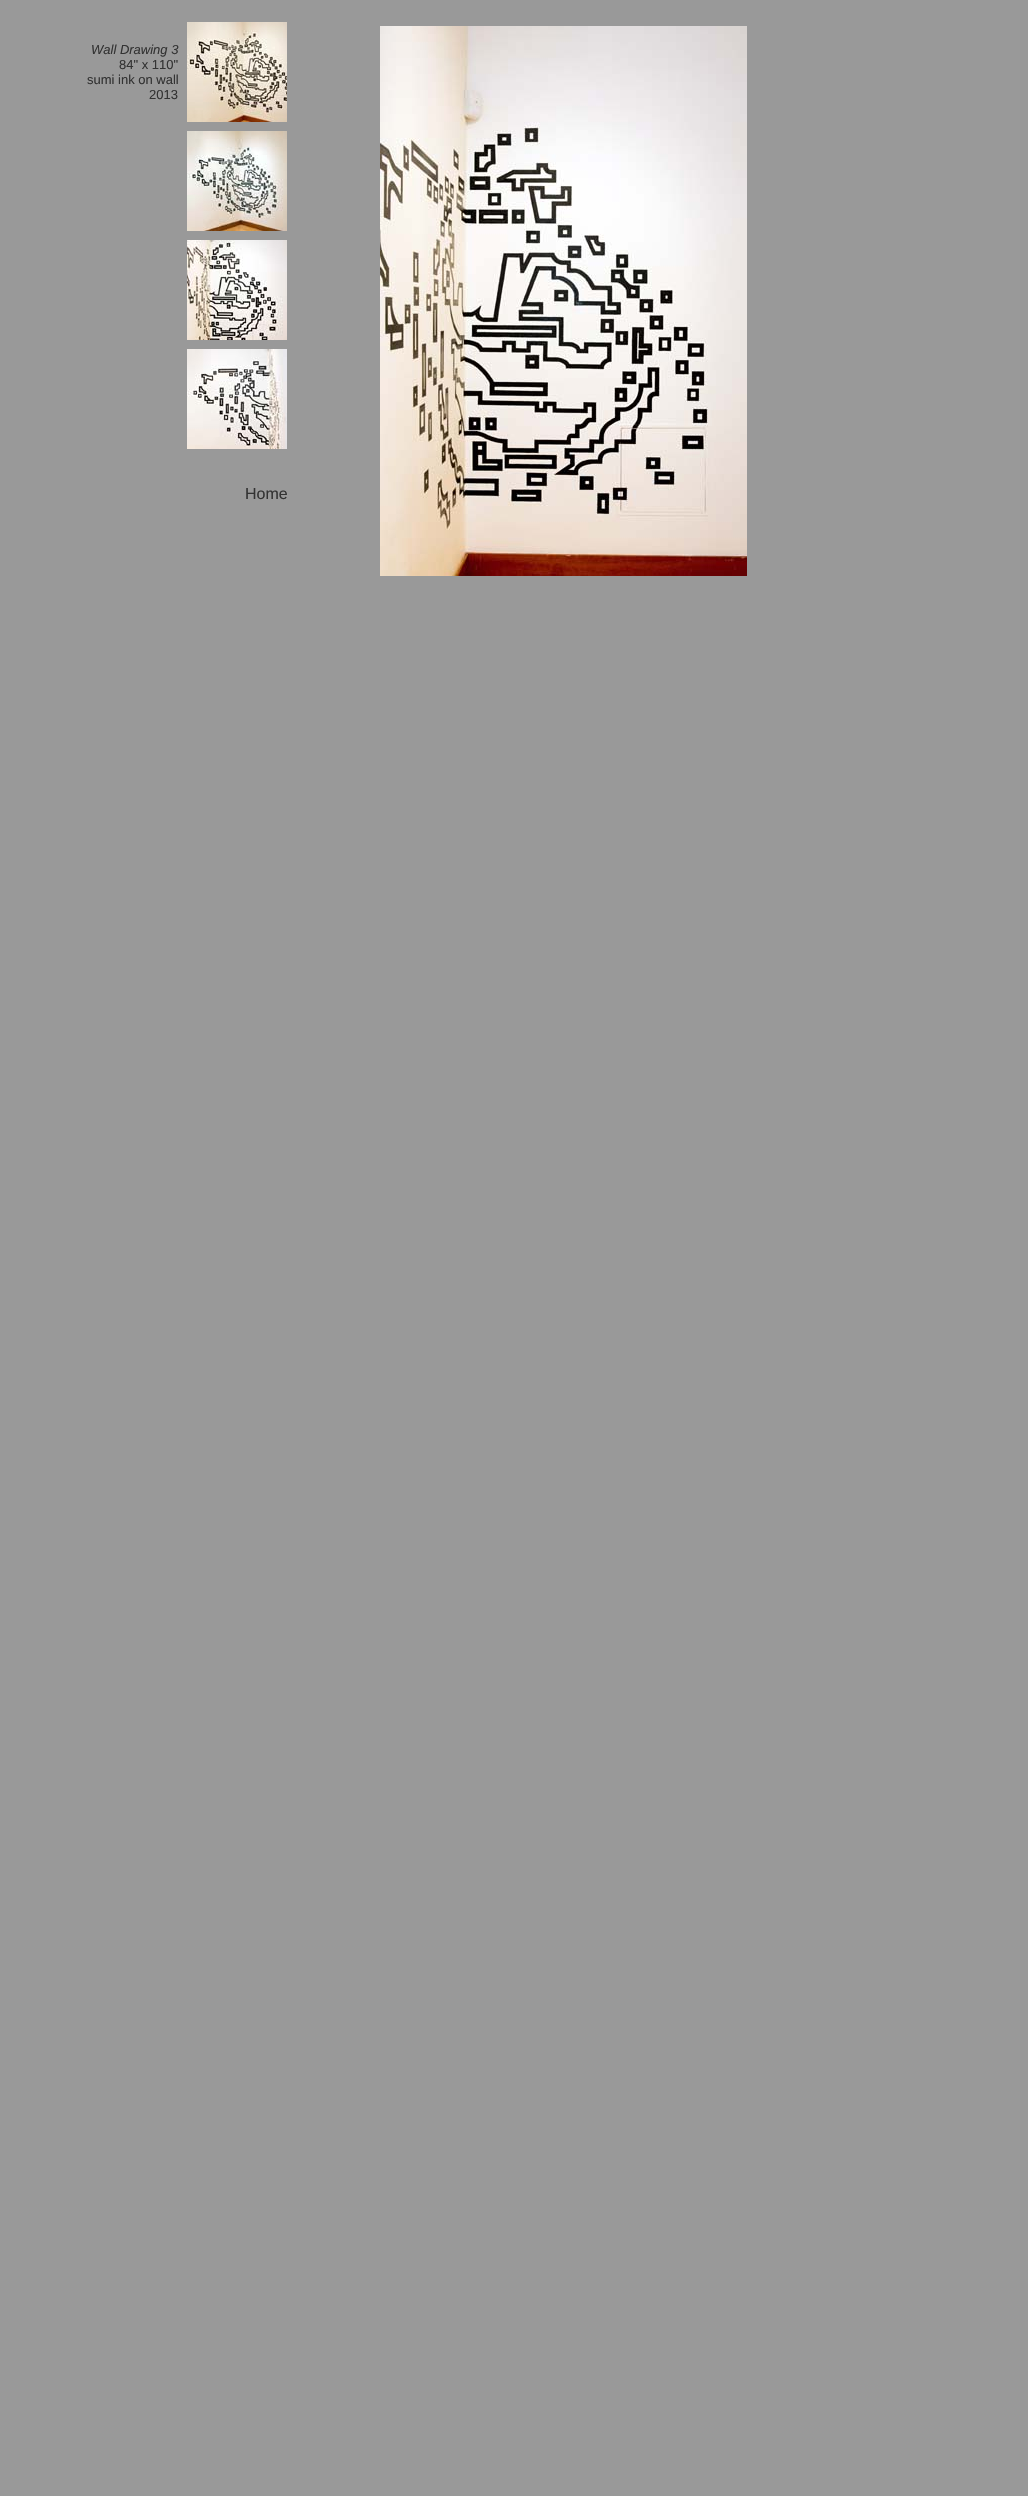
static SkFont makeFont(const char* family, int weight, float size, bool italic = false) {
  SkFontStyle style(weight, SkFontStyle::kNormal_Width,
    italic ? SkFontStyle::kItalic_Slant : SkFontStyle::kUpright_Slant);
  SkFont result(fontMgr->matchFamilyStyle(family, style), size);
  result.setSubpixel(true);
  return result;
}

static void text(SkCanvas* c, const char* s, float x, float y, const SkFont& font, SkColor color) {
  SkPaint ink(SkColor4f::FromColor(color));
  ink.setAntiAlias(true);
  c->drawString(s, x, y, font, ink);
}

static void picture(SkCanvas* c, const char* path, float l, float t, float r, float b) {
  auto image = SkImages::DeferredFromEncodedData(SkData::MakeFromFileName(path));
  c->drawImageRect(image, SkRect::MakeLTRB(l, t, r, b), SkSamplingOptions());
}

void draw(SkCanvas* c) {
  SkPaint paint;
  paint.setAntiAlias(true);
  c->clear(0xff999999);
  SkFont face1 = makeFont("Liberation Sans", 400, 13, true);
  text(c, "Wall Drawing 3", 91, 54, face1, 0xff333333);
  SkFont face2 = makeFont("Liberation Sans", 400, 13);
  text(c, "84\" x 110\"", 119, 69, face2, 0xff333333);
  text(c, "sumi ink on wall", 87, 84, face2, 0xff333333);
  text(c, "2013", 149, 99, face2, 0xff333333);
  picture(c, "img_01.png", 187, 22, 287, 122);
  picture(c, "img_02.png", 187, 131, 287, 231);
  picture(c, "img_03.png", 187, 240, 287, 340);
  picture(c, "img_04.png", 187, 349, 287, 449);
  SkFont face3 = makeFont("Liberation Sans", 400, 16);
  text(c, "Home", 245, 499, face3, 0xff333333);
  picture(c, "img_05.png", 380, 26, 747, 576);
}
